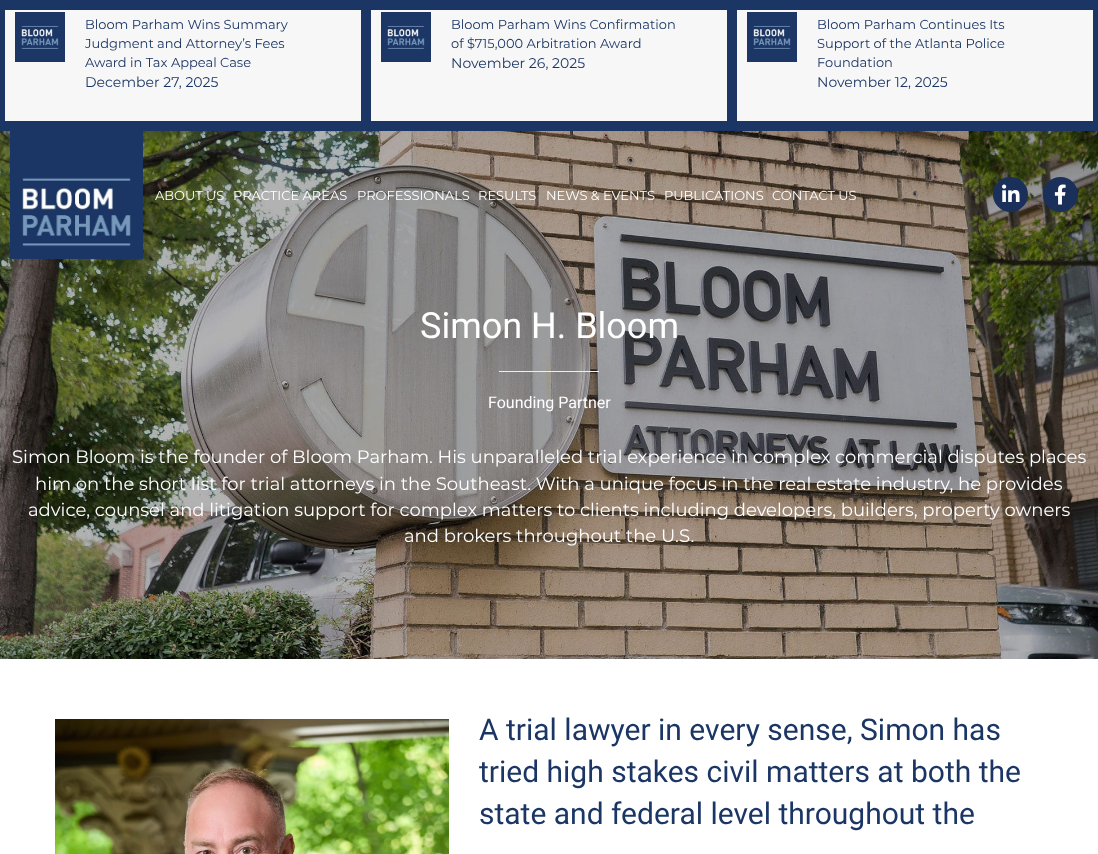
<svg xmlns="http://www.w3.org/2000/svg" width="1098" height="854">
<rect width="100%" height="100%" fill="#fff"/>
<rect width="1098" height="131" fill="#1b3665"/>
<rect x="5" y="10" width="356" height="111" fill="#f7f7f7"/>
<image x="15" y="12" width="50" height="50" href="media/1.png"/>
<text x="85" y="29" style="font-family:Montserrat;font-size:13px;fill:#1b3665">Bloom Parham Wins Summary</text>
<text x="85" y="48" style="font-family:Montserrat;font-size:13px;fill:#1b3665">Judgment and Attorney’s Fees</text>
<text x="85" y="67" style="font-family:Montserrat;font-size:13px;fill:#1b3665">Award in Tax Appeal Case</text>
<text x="85" y="87" style="font-family:Montserrat;font-size:14px;fill:#1b3665">December 27, 2025</text>
<rect x="371" y="10" width="356" height="111" fill="#f7f7f7"/>
<image x="381" y="12" width="50" height="50" href="media/1.png"/>
<text x="451" y="29" style="font-family:Montserrat;font-size:13px;fill:#1b3665">Bloom Parham Wins Confirmation</text>
<text x="451" y="48" style="font-family:Montserrat;font-size:13px;fill:#1b3665">of $715,000 Arbitration Award</text>
<text x="451" y="68" style="font-family:Montserrat;font-size:14px;fill:#1b3665">November 26, 2025</text>
<rect x="737" y="10" width="356" height="111" fill="#f7f7f7"/>
<image x="747" y="12" width="50" height="50" href="media/1.png"/>
<text x="817" y="29" style="font-family:Montserrat;font-size:13px;fill:#1b3665">Bloom Parham Continues Its</text>
<text x="817" y="48" style="font-family:Montserrat;font-size:13px;fill:#1b3665">Support of the Atlanta Police</text>
<text x="817" y="67" style="font-family:Montserrat;font-size:13px;fill:#1b3665">Foundation</text>
<text x="817" y="87" style="font-family:Montserrat;font-size:14px;fill:#1b3665">November 12, 2025</text>
<image x="0" y="131" width="1098" height="528" href="media/5.png"/>
<image x="10" y="131" width="133" height="128" href="media/2.png"/>
<text x="155" y="200" style="font-family:Montserrat;font-size:13px;fill:#fff">ABOUT US</text>
<text x="233" y="200" style="font-family:Montserrat;font-size:13px;fill:#fff">PRACTICE AREAS</text>
<text x="357" y="200" style="font-family:Montserrat;font-size:13px;fill:#fff">PROFESSIONALS</text>
<text x="478" y="200" style="font-family:Montserrat;font-size:13px;fill:#fff">RESULTS</text>
<text x="546" y="200" style="font-family:Montserrat;font-size:13px;fill:#fff">NEWS &amp; EVENTS</text>
<text x="664" y="200" style="font-family:Montserrat;font-size:13px;fill:#fff">PUBLICATIONS</text>
<text x="772" y="200" style="font-family:Montserrat;font-size:13px;fill:#fff">CONTACT US</text>
<circle cx="1010.5" cy="194.5" r="17.5" fill="#1a305a"/>
<image x="1002" y="184" width="18" height="18" href="media/3.png"/>
<circle cx="1060.5" cy="194.5" r="17.5" fill="#1a305a"/>
<image x="1054" y="184" width="12" height="21" href="media/4.png"/>
<text x="420" y="338" style="font-family:Roboto;font-size:36px;fill:#fff">Simon H. Bloom</text>
<rect x="499" y="371" width="100" height="1" fill="#eee"/>
<text x="488" y="408" style="font-family:Roboto;font-size:16px;fill:#fff">Founding Partner</text>
<text x="12" y="463" style="font-family:Montserrat;font-size:18px;fill:#fff">Simon Bloom is the founder of Bloom Parham. His unparalleled trial experience in complex commercial disputes places</text>
<text x="35" y="490" style="font-family:Montserrat;font-size:18px;fill:#fff">him on the short list for trial attorneys in the Southeast. With a unique focus in the real estate industry, he provides</text>
<text x="28" y="516" style="font-family:Montserrat;font-size:18px;fill:#fff">advice, counsel and litigation support for complex matters to clients including developers, builders, property owners</text>
<text x="404" y="542" style="font-family:Montserrat;font-size:18px;fill:#fff">and brokers throughout the U.S.</text>
<image x="55" y="719" width="394" height="135" href="media/6.png"/>
<text x="479" y="740" style="font-family:Roboto;font-size:30px;fill:#1b3665">A trial lawyer in every sense, Simon has</text>
<text x="479" y="782" style="font-family:Roboto;font-size:30px;fill:#1b3665">tried high stakes civil matters at both the</text>
<text x="479" y="824" style="font-family:Roboto;font-size:30px;fill:#1b3665">state and federal level throughout the</text>
</svg>
